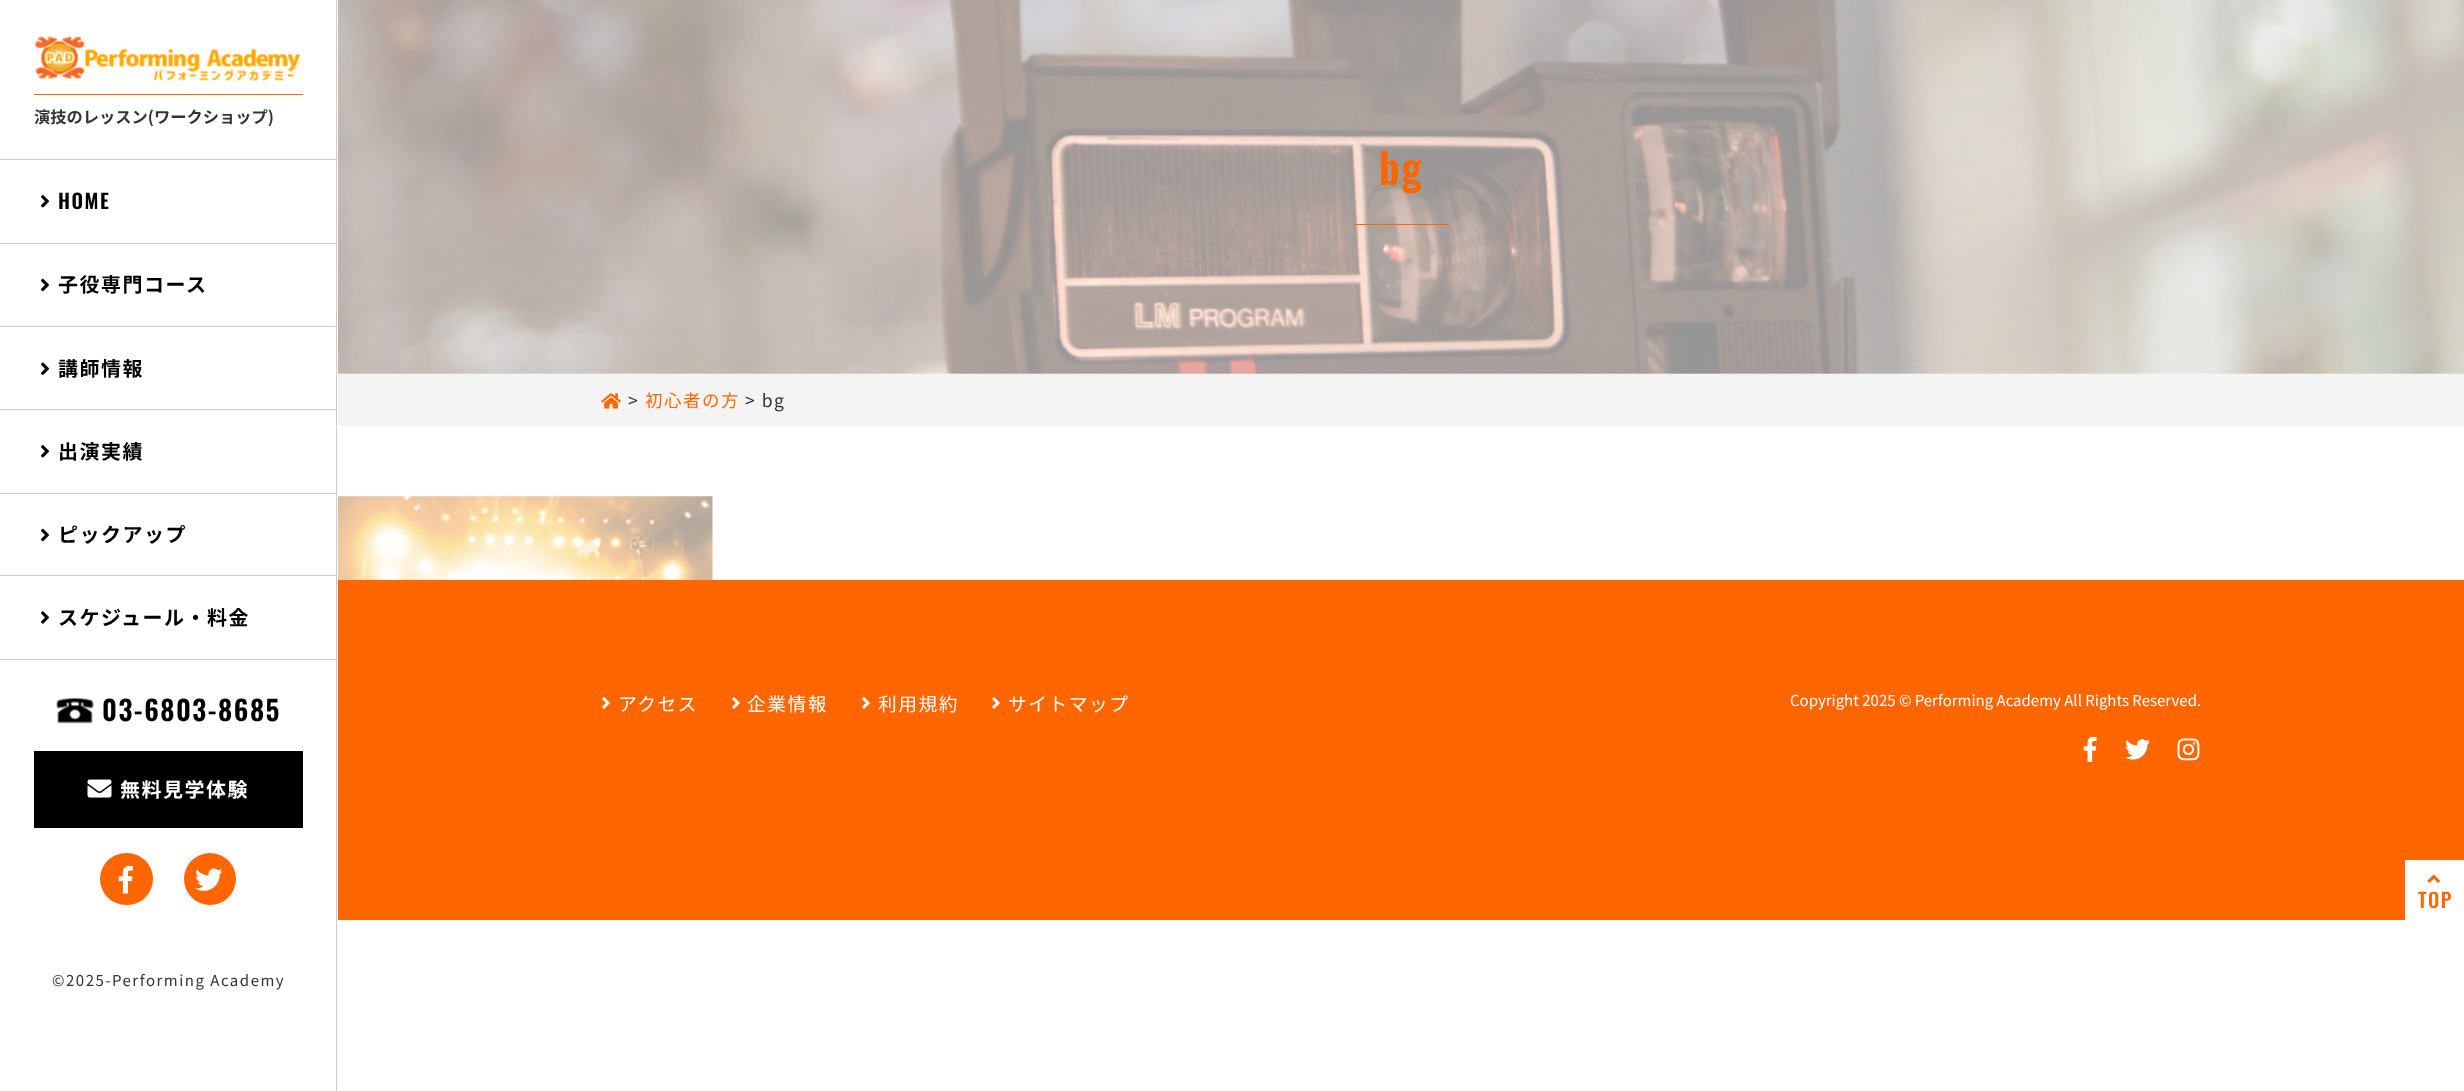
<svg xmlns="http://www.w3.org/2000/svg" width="2464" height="1091">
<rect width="100%" height="100%" fill="#fff"/>
<rect x="336" width="1" height="1091" fill="#ccc"/>
<rect x="34" y="94" width="269" height="1" fill="#f60"/>
<image x="34" y="36" width="267" height="45" href="media/1.png"/>
<text x="34" y="123" style="font-family:Noto Sans JP;font-size:16.25px;font-weight:bold;fill:#343434">演技のレッスン(ワークショップ)</text>
<rect y="159" width="336" height="1" fill="#ccc"/>
<rect y="243" width="336" height="1" fill="#ccc"/>
<image x="41" y="195" width="8" height="13" href="media/2.png"/>
<text x="58" y="209" style="font-family:Oswald;font-size:20px;font-weight:600;letter-spacing:1.5px;fill:#000">HOME</text>
<rect y="326" width="336" height="1" fill="#ccc"/>
<image x="41" y="278" width="8" height="14" href="media/3.png"/>
<text x="58" y="292" style="font-family:Noto Sans JP;font-size:20px;font-weight:bold;letter-spacing:1.5px;fill:#000">子役専門コース</text>
<rect y="409" width="336" height="1" fill="#ccc"/>
<image x="41" y="362" width="8" height="13" href="media/4.png"/>
<text x="58" y="376" style="font-family:Noto Sans JP;font-size:20px;font-weight:bold;letter-spacing:1.5px;fill:#000">講師情報</text>
<rect y="493" width="336" height="1" fill="#ccc"/>
<image x="41" y="445" width="8" height="13" href="media/2.png"/>
<text x="58" y="459" style="font-family:Noto Sans JP;font-size:20px;font-weight:bold;letter-spacing:1.5px;fill:#000">出演実績</text>
<rect y="575" width="336" height="1" fill="#ccc"/>
<image x="41" y="528" width="8" height="14" href="media/3.png"/>
<text x="58" y="542" style="font-family:Noto Sans JP;font-size:20px;font-weight:bold;letter-spacing:1.5px;fill:#000">ピックアップ</text>
<rect y="659" width="336" height="1" fill="#ccc"/>
<image x="41" y="611" width="8" height="13" href="media/5.png"/>
<text x="58" y="625" style="font-family:Noto Sans JP;font-size:20px;font-weight:bold;letter-spacing:1.5px;fill:#000">スケジュール・料金</text>
<image x="55" y="697" width="39" height="27" href="media/6.png"/>
<text x="102" y="721" style="font-family:Oswald;font-size:27.5px;font-weight:600;letter-spacing:1.5px;fill:#000">03-6803-8685</text>
<rect x="34" y="751" width="269" height="77" fill="#000"/>
<image x="87" y="779" width="25" height="19" href="media/7.png"/>
<text x="120" y="797" style="font-family:Noto Sans JP;font-size:20px;font-weight:bold;letter-spacing:1.5px;fill:#fff">無料見学体験</text>
<rect x="100" y="853" width="53" height="52" rx="26" fill="#f60"/>
<image x="118" y="865" width="15" height="29" href="media/8.png"/>
<circle cx="210" cy="879" r="26" fill="#f60"/>
<image x="195" y="868" width="28" height="23" href="media/9.png"/>
<text x="52" y="986" style="font-family:Noto Sans JP;font-size:15px;letter-spacing:1.5px;fill:#343434">©2025-Performing Academy</text>
<image x="338" y="0" width="2126" height="374" href="media/10.png"/>
<text x="1379" y="185" style="font-family:Oswald;font-size:42px;font-weight:600;letter-spacing:1.5px;fill:#f60">bg</text>
<rect x="1354" y="224" width="95" height="1" fill="#f60"/>
<rect x="338" y="374" width="2126" height="52" fill="#f4f4f5"/>
<image x="601" y="393" width="20" height="16" href="media/11.png"/>
<text x="628" y="407" style="font-family:Noto Sans JP;font-size:17.5px;letter-spacing:1.5px;fill:#343434">&gt;</text>
<text x="645" y="407" style="font-family:Noto Sans JP;font-size:17.5px;letter-spacing:1.5px;fill:#f60">初心者の方</text>
<text x="745" y="407" style="font-family:Noto Sans JP;font-size:17.5px;letter-spacing:1.5px;fill:#343434">&gt; bg</text>
<image x="338" y="496" width="375" height="84" href="media/12.png"/>
<rect x="338" y="580" width="2126" height="340" fill="#f60"/>
<image x="602" y="697" width="8" height="12" href="media/13.png"/>
<text x="618" y="711" style="font-family:Noto Sans JP;font-size:18.75px;letter-spacing:1.5px;fill:#fff">アクセス</text>
<image x="732" y="697" width="8" height="12" href="media/13.png"/>
<text x="747" y="711" style="font-family:Noto Sans JP;font-size:18.75px;letter-spacing:1.5px;fill:#fff">企業情報</text>
<image x="862" y="697" width="8" height="12" href="media/13.png"/>
<text x="878" y="711" style="font-family:Noto Sans JP;font-size:18.75px;letter-spacing:1.5px;fill:#fff">利用規約</text>
<image x="992" y="697" width="8" height="12" href="media/13.png"/>
<text x="1008" y="711" style="font-family:Noto Sans JP;font-size:18.75px;letter-spacing:1.5px;fill:#fff">サイトマップ</text>
<text x="1790" y="706" style="font-family:Noto Sans JP;font-size:15px;fill:#fff">Copyright 2025 © Performing Academy All Rights Reserved.</text>
<image x="2083" y="736" width="14" height="26" href="media/14.png"/>
<image x="2125" y="739" width="25" height="21" href="media/15.png"/>
<image x="2177" y="738" width="23" height="23" href="media/16.png"/>
<rect x="2405" y="860" width="59" height="60" fill="#fff"/>
<image x="2427" y="874" width="13" height="9" href="media/17.png"/>
<text x="2418" y="908" style="font-family:Oswald;font-size:20px;font-weight:500;letter-spacing:1.5px;fill:#f60">TOP</text>
</svg>
